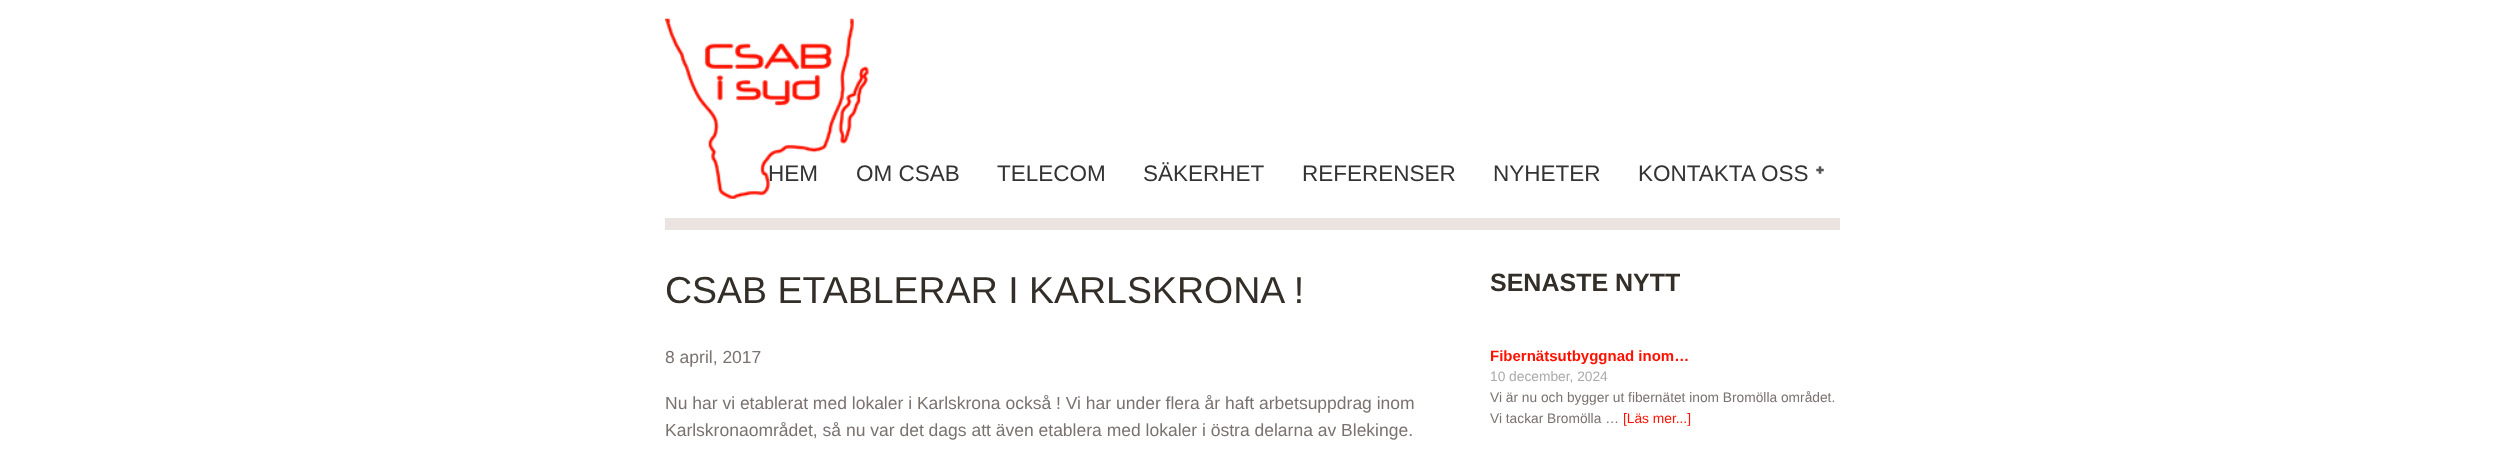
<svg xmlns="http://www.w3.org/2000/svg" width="2504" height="458">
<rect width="100%" height="100%" fill="#fff"/>
<image x="665" y="18" width="204" height="181" href="media/1.png"/>
<text x="768" y="181" style="font-family:Liberation Sans;font-size:22.5px;fill:#333">HEM</text>
<text x="856" y="181" style="font-family:Liberation Sans;font-size:22.5px;fill:#333">OM CSAB</text>
<text x="997" y="181" style="font-family:Liberation Sans;font-size:22.5px;fill:#333">TELECOM</text>
<text x="1143" y="181" style="font-family:Liberation Sans;font-size:22.5px;fill:#333">SÄKERHET</text>
<text x="1302" y="181" style="font-family:Liberation Sans;font-size:22.5px;fill:#333">REFERENSER</text>
<text x="1493" y="181" style="font-family:Liberation Sans;font-size:22.5px;fill:#333">NYHETER</text>
<text x="1638" y="181" style="font-family:Liberation Sans;font-size:22.5px;fill:#333">KONTAKTA OSS</text>
<image x="1816" y="166" width="8" height="8" href="media/2.png"/>
<rect x="665" y="218" width="1175" height="12" fill="#eae3e0"/>
<text x="665" y="303" style="font-family:Liberation Sans;font-size:37.5px;fill:#332e28">CSAB ETABLERAR I KARLSKRONA !</text>
<text x="665" y="363" style="font-family:Liberation Sans;font-size:17.5px;fill:#7a726f">8 april, 2017</text>
<text x="665" y="409" style="font-family:Liberation Sans;font-size:17.5px;fill:#7a726f">Nu har vi etablerat med lokaler i Karlskrona också ! Vi har under flera år haft arbetsuppdrag inom</text>
<text x="665" y="436" style="font-family:Liberation Sans;font-size:17.5px;fill:#7a726f">Karlskronaområdet, så nu var det dags att även etablera med lokaler i östra delarna av Blekinge.</text>
<text x="1490" y="291" style="font-family:Liberation Sans;font-size:25px;font-weight:bold;fill:#332e28">SENASTE NYTT</text>
<text x="1490" y="361" style="font-family:Liberation Sans;font-size:15px;font-weight:bold;fill:#f10">Fibernätsutbyggnad inom…</text>
<text x="1490" y="381" style="font-family:Liberation Sans;font-size:13.75px;fill:#aaa">10 december, 2024</text>
<text x="1490" y="402" style="font-family:Liberation Sans;font-size:13.75px;fill:#7a726f">Vi är nu och bygger ut fibernätet inom Bromölla området.</text>
<text x="1490" y="423" style="font-family:Liberation Sans;font-size:13.75px;fill:#7a726f">Vi tackar Bromölla …</text>
<text x="1623" y="423" style="font-family:Liberation Sans;font-size:13.75px;fill:#f10">[Läs mer...]</text>
</svg>
